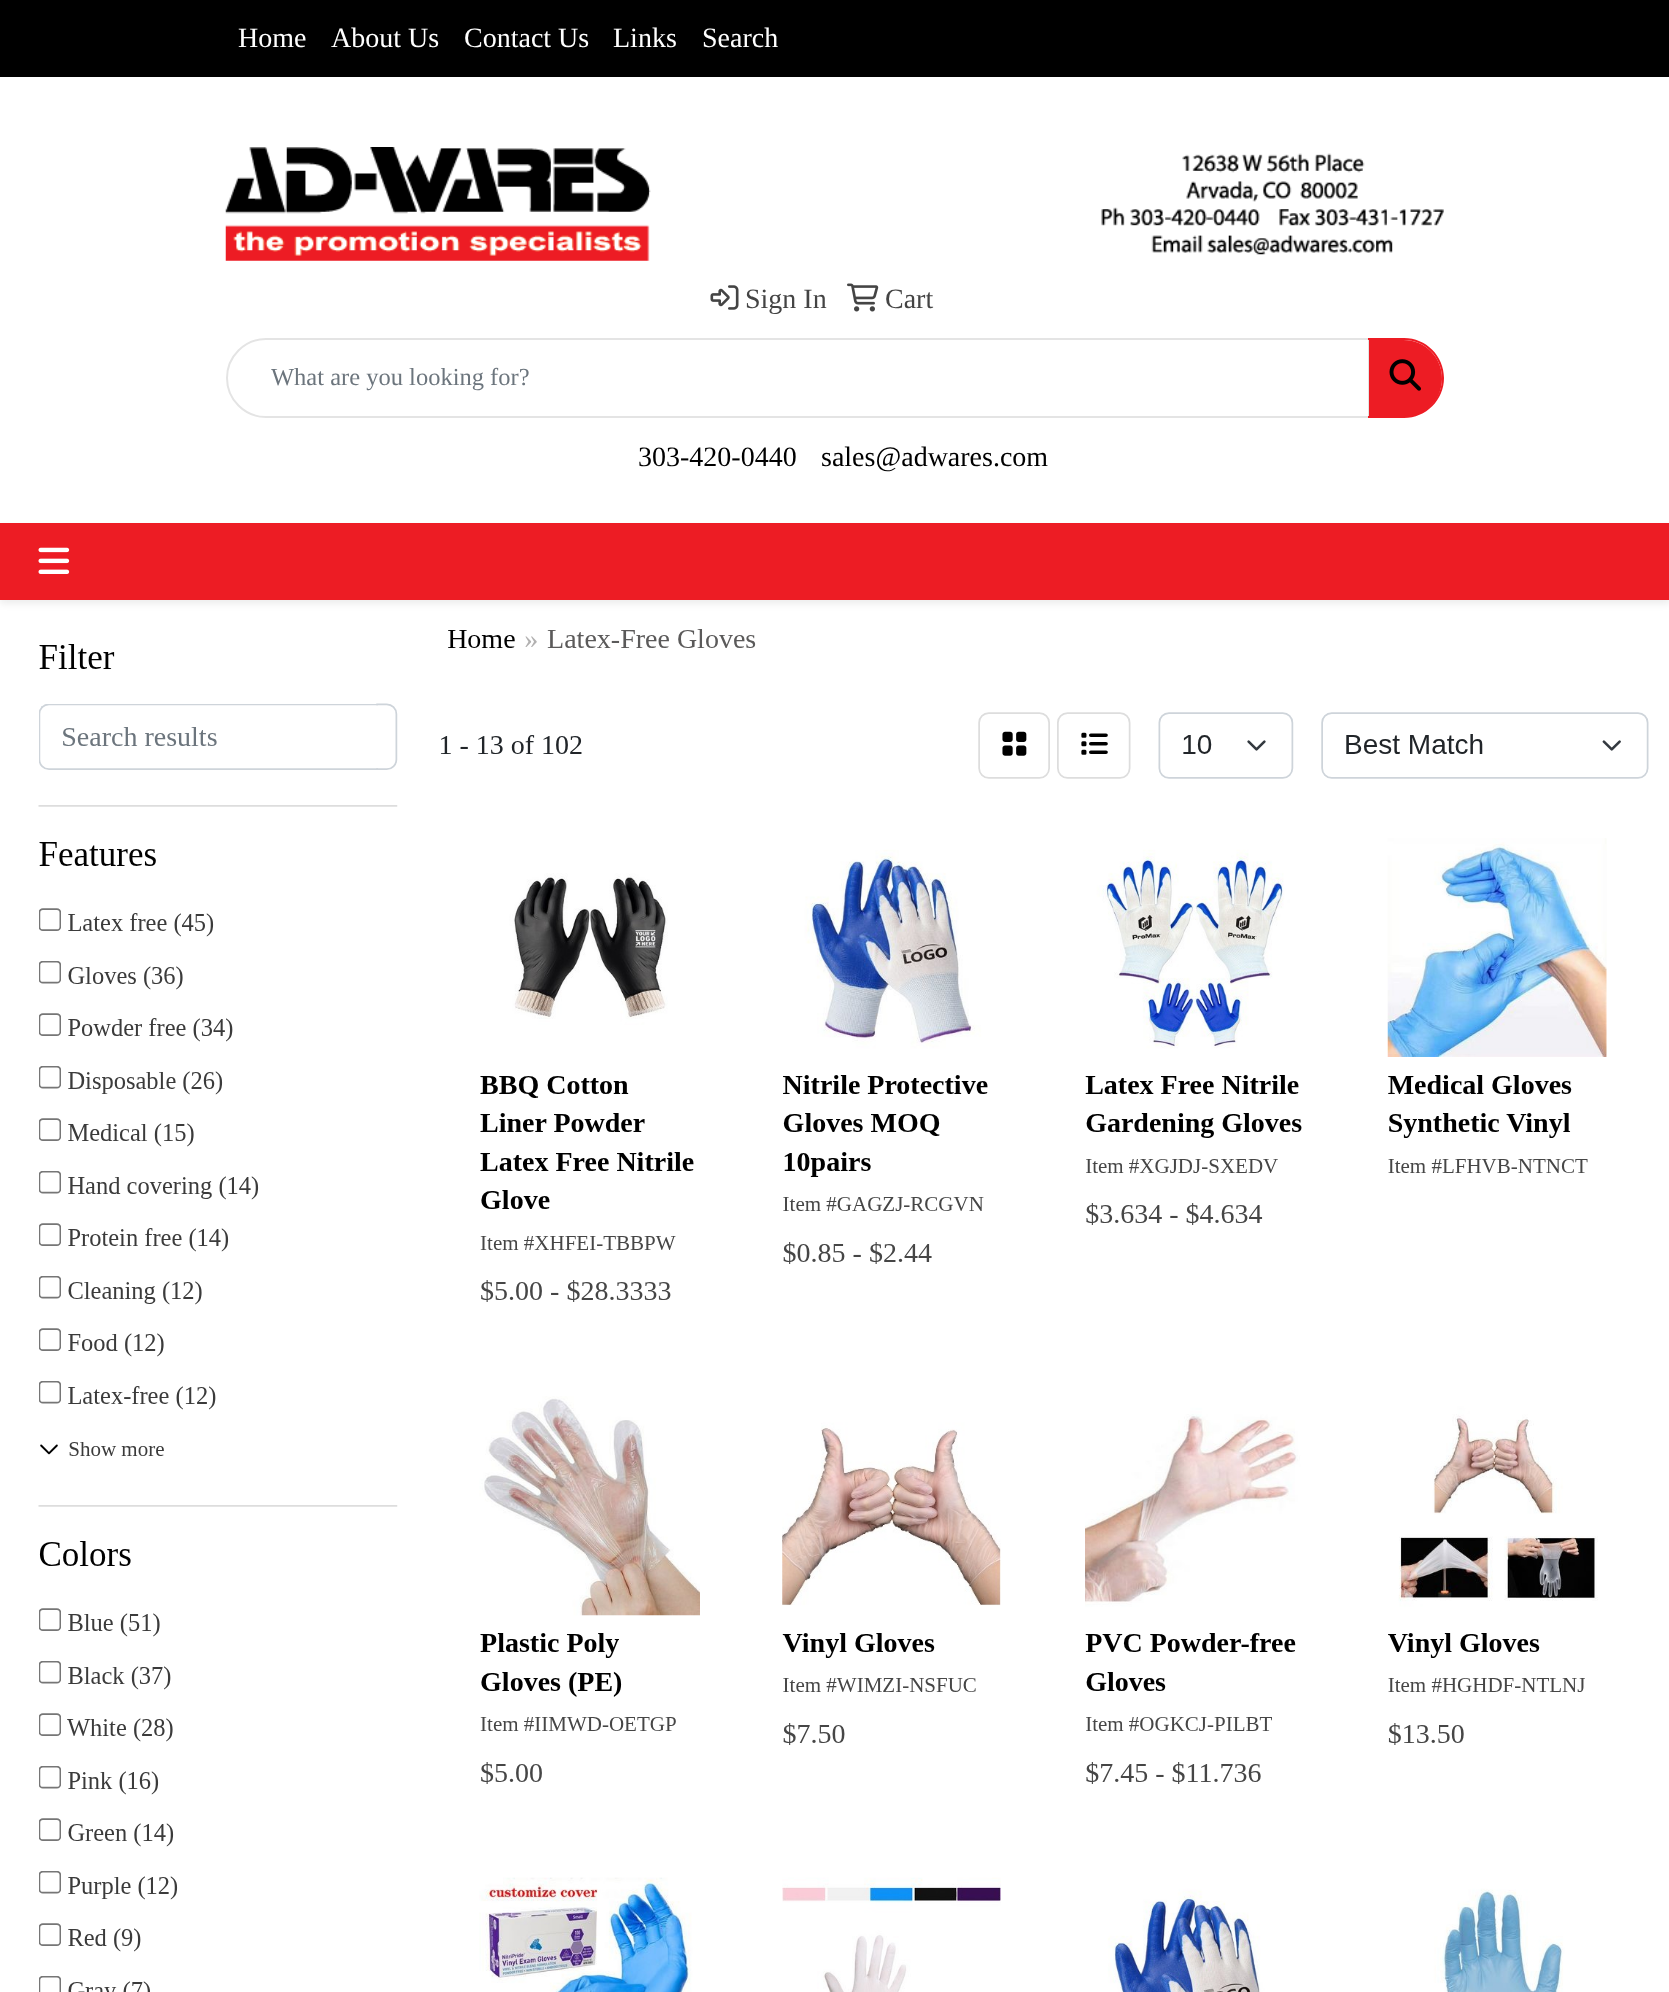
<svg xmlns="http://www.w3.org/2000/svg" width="1669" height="1992">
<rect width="100%" height="100%" fill="#fff"/>
<rect width="1669" height="77" fill="#000"/>
<text x="238" y="47" style="font-family:Liberation Serif;font-size:28px;fill:#fff">Home</text>
<text x="331" y="47" style="font-family:Liberation Serif;font-size:28px;fill:#fff">About Us</text>
<text x="464" y="47" style="font-family:Liberation Serif;font-size:28px;fill:#fff">Contact Us</text>
<text x="613" y="47" style="font-family:Liberation Serif;font-size:28px;fill:#fff">Links</text>
<text x="702" y="47" style="font-family:Liberation Serif;font-size:28px;fill:#fff">Search</text>
<image x="225" y="147" width="1219" height="114" href="media/1.png"/>
<image x="710" y="285" width="29" height="25" href="media/2.png"/>
<text x="745" y="308" style="font-family:Liberation Serif;font-size:28px;fill:#444">Sign In</text>
<image x="847" y="283" width="32" height="29" href="media/3.png"/>
<text x="885" y="308" style="font-family:Liberation Serif;font-size:28px;fill:#444">Cart</text>
<path d="M266 339h1103v78h-1103c-21.5 0-39-17.5-39-39c0-21.5 17.5-39 39-39z" fill="none" stroke="#e4e4e4" stroke-width="2"/>
<text x="271" y="385" style="font-family:Liberation Serif;font-size:24.5px;fill:#6c757d">What are you looking for?</text>
<path d="M1369 340h34.5c21.5 0 38.5 17 38.5 38.5c0 21.5-17 38.5-38.5 38.5h-34.5z" fill="#ed1c24"/>
<path d="M1368 338h36c22 0 40 18 40 40c0 22-18 40-40 40h-36zm0 2h36c21 0 38 17 38 38c0 21-17 38-38 38h-36z" fill="#ed1c24" fill-rule="evenodd"/>
<image x="1389" y="359" width="32" height="32" href="media/4.png"/>
<text x="638" y="466" style="font-family:Liberation Serif;font-size:28px;fill:#000">303-420-0440</text>
<text x="821" y="466" style="font-family:Liberation Serif;font-size:28px;fill:#000">sales@adwares.com</text>
<rect y="527" width="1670" height="77" fill="#00000012" filter="blur(3.5px)"/>
<rect y="523" width="1669" height="77" fill="#ed1c24"/>
<image x="38" y="547" width="32" height="27" href="media/5.png"/>
<image x="38" y="629" width="1611" height="1363" href="media/6.png"/>
</svg>
